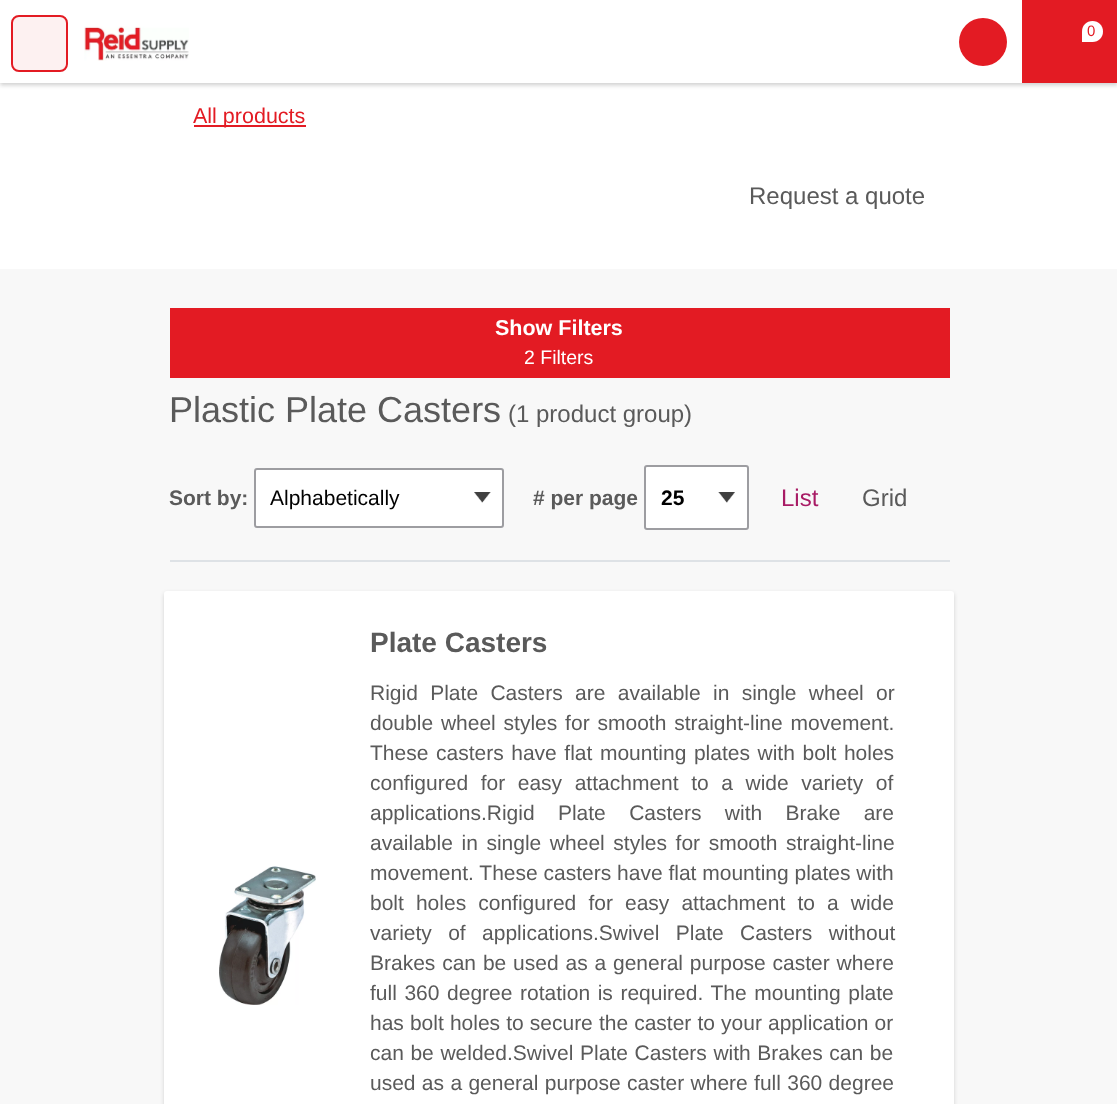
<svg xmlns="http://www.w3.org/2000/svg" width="1117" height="1104">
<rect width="100%" height="100%" fill="#fff"/>
<rect y="2" width="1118" height="82" fill="#0000011a" filter="blur(2px)"/>
<rect y="3" width="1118" height="83" fill="#0000011a" filter="blur(2px)"/>
<rect width="1022" height="83" fill="#fff"/>
<rect x="12" y="16" width="55" height="55" rx="7" fill="#fdf1f1" stroke="#e31b23" stroke-width="2"/>
<image x="84" y="26" width="105" height="35" href="media/1.png"/>
<circle cx="983" cy="42" r="24" fill="#e31b23"/>
<rect x="1022" width="95" height="83" fill="#e31b23"/>
<path d="M1092.5 21c6 0 10.5 4.5 10.5 10.5c0 6-4.5 10.5-10.5 10.5h-10.5v-10.5c0-6 4.5-10.5 10.5-10.5z" fill="#fff"/>
<text x="1087" y="36" style="font-family:Liberation Sans;font-size:15px;fill:#e31b23">0</text>
<rect x="194" y="125" width="112" height="2" fill="#e31b23"/>
<text x="193" y="123" style="font-family:Liberation Sans;font-size:21.5px;fill:#e31b23">All products</text>
<text x="749" y="204" style="font-family:Liberation Sans;font-size:24px;fill:#5a5a5a">Request a quote</text>
<rect y="269" width="1117" height="835" fill="#f8f8f8"/>
<rect x="170" y="308" width="780" height="70" fill="#e31b23"/>
<text x="495" y="335" style="font-family:Liberation Sans;font-size:21.5px;font-weight:bold;fill:#fff">Show Filters</text>
<text x="524" y="364" style="font-family:Liberation Sans;font-size:19.5px;fill:#fff">2 Filters</text>
<text x="169" y="422" style="font-family:Liberation Sans;font-size:36px;fill:#5a5a5a">Plastic Plate Casters</text>
<text x="508" y="422" style="font-family:Liberation Sans;font-size:24px;fill:#5a5a5a">(1 product group)</text>
<text x="169" y="505" style="font-family:Liberation Sans;font-size:21px;font-weight:bold;fill:#5a5a5a">Sort by:</text>
<rect x="254" y="468" width="250" height="60" rx="3" fill="#fff"/>
<image x="474" y="492" width="17" height="11" href="media/2.png"/>
<rect x="255" y="469" width="248" height="58" rx="2" fill="none" stroke="#9d9da1" stroke-width="2"/>
<text x="270" y="505" style="font-family:Liberation Sans;font-size:21px;fill:#000">Alphabetically</text>
<text x="533" y="505" style="font-family:Liberation Sans;font-size:21px;font-weight:bold;fill:#5a5a5a"># per page</text>
<rect x="644" y="465" width="105" height="65" rx="3" fill="#fff"/>
<image x="718" y="492" width="17" height="11" href="media/3.png"/>
<rect x="645" y="466" width="103" height="63" rx="2" fill="none" stroke="#9d9da1" stroke-width="2"/>
<text x="661" y="505" style="font-family:Liberation Sans;font-size:21px;font-weight:bold;fill:#000">25</text>
<text x="781" y="506" style="font-family:Liberation Sans;font-size:24px;fill:#a81b65">List</text>
<text x="862" y="506" style="font-family:Liberation Sans;font-size:24px;fill:#5a5a5a">Grid</text>
<rect x="170" y="560" width="780" height="2" fill="#dee2e6"/>
<rect x="164" y="593" width="790" height="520" rx="3" fill="#00000126" filter="blur(2px)"/>
<rect x="164" y="591" width="790" height="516" rx="3" fill="#fff"/>
<image x="219" y="866" width="97" height="139" href="media/4.png"/>
<text x="370" y="652" style="font-family:Liberation Sans;font-size:28px;font-weight:bold;fill:#5a5a5a">Plate Casters</text>
<text x="370" y="700" word-spacing="6.5" style="font-family:Liberation Sans;font-size:21px;fill:#5a5a5a">Rigid Plate Casters are available in single wheel or</text>
<text x="370" y="730" word-spacing="2" style="font-family:Liberation Sans;font-size:21px;fill:#5a5a5a">double wheel styles for smooth straight-line movement.</text>
<text x="370" y="760" word-spacing="1.75" style="font-family:Liberation Sans;font-size:21px;fill:#5a5a5a">These casters have flat mounting plates with bolt holes</text>
<text x="370" y="790" word-spacing="6.75" style="font-family:Liberation Sans;font-size:21px;fill:#5a5a5a">configured for easy attachment to a wide variety of</text>
<text x="370" y="820" word-spacing="17.5" style="font-family:Liberation Sans;font-size:21px;fill:#5a5a5a">applications.Rigid Plate Casters with Brake are</text>
<text x="370" y="850" word-spacing="2.75" style="font-family:Liberation Sans;font-size:21px;fill:#5a5a5a">available in single wheel styles for smooth straight-line</text>
<text x="370" y="880" style="font-family:Liberation Sans;font-size:21px;fill:#5a5a5a">movement. These casters have flat mounting plates with</text>
<text x="370" y="910" word-spacing="6.25" style="font-family:Liberation Sans;font-size:21px;fill:#5a5a5a">bolt holes configured for easy attachment to a wide</text>
<text x="370" y="940" word-spacing="10.5" style="font-family:Liberation Sans;font-size:21px;fill:#5a5a5a">variety of applications.Swivel Plate Casters without</text>
<text x="370" y="970" word-spacing="1" style="font-family:Liberation Sans;font-size:21px;fill:#5a5a5a">Brakes can be used as a general purpose caster where</text>
<text x="370" y="1000" word-spacing="1.75" style="font-family:Liberation Sans;font-size:21px;fill:#5a5a5a">full 360 degree rotation is required. The mounting plate</text>
<text x="370" y="1030" word-spacing="0.25" style="font-family:Liberation Sans;font-size:21px;fill:#5a5a5a">has bolt holes to secure the caster to your application or</text>
<text x="370" y="1060" word-spacing="0.75" style="font-family:Liberation Sans;font-size:21px;fill:#5a5a5a">can be welded.Swivel Plate Casters with Brakes can be</text>
<text x="370" y="1090" word-spacing="0.5" style="font-family:Liberation Sans;font-size:21px;fill:#5a5a5a">used as a general purpose caster where full 360 degree</text>
</svg>
